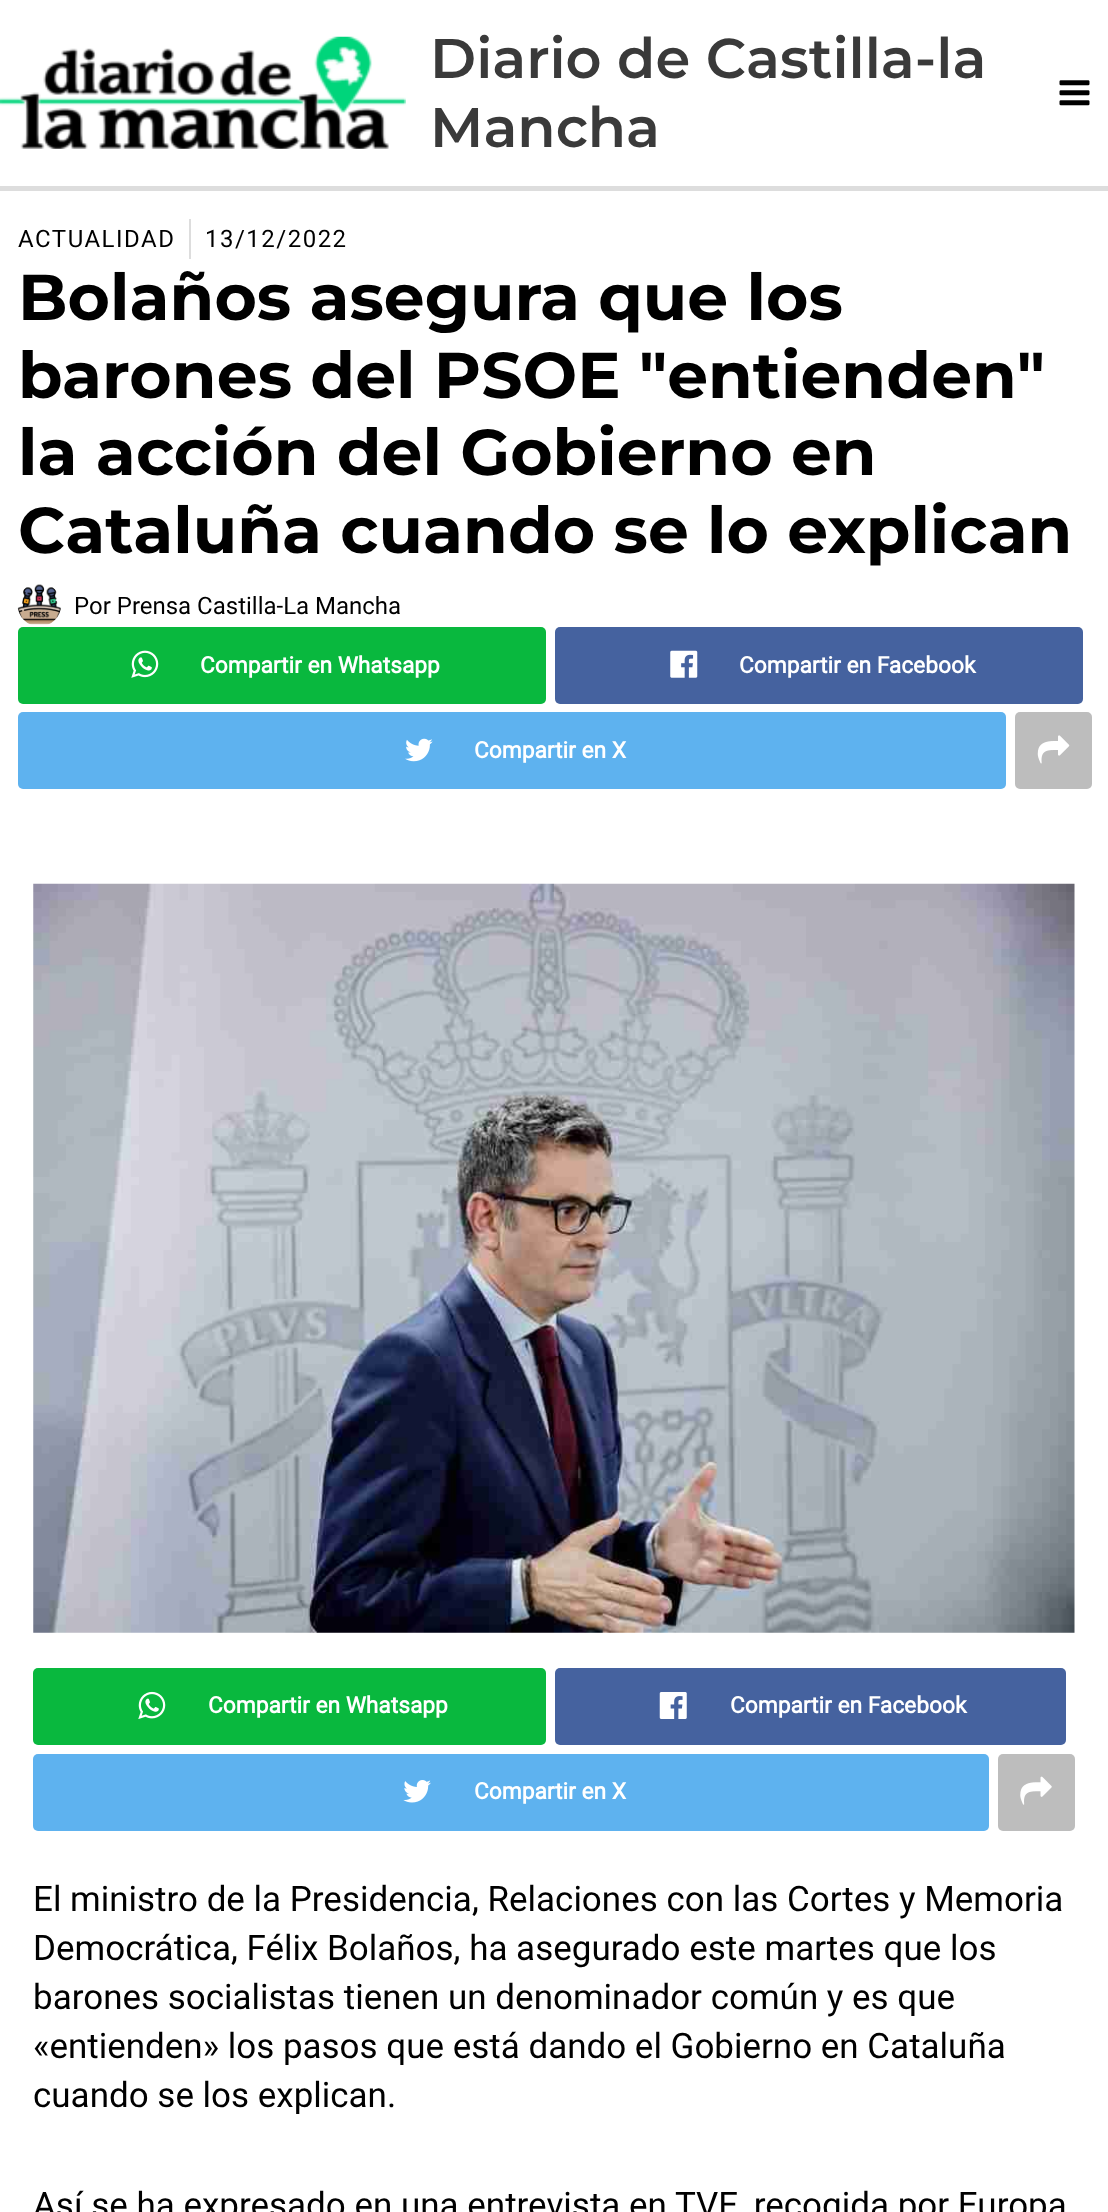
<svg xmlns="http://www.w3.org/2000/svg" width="1108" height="2212">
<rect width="100%" height="100%" fill="#fff"/>
<rect y="186" width="1108" height="5" fill="#ddd"/>
<image x="0" y="36" width="406" height="113" href="media/1.png"/>
<text x="430" y="78" style="font-family:Montserrat;font-size:55.9px;font-weight:600;fill:#3a3a3a">Diario de Castilla-la</text>
<text x="430" y="147" style="font-family:Montserrat;font-size:55.9px;font-weight:600;fill:#3a3a3a">Mancha</text>
<image x="1059" y="80" width="31" height="26" href="media/2.png"/>
<text x="18" y="247" style="font-family:Roboto;font-size:24px;letter-spacing:1.5px;fill:#000">ACTUALIDAD</text>
<rect x="189" y="219" width="2" height="40" fill="#ddd"/>
<text x="205" y="247" style="font-family:Roboto;font-size:24px;letter-spacing:1.5px;fill:#000">13/12/2022</text>
<text x="18" y="320" style="font-family:Montserrat;font-size:64.75px;font-weight:bold;fill:#000">Bolaños asegura que los</text>
<text x="18" y="398" style="font-family:Montserrat;font-size:64.75px;font-weight:bold;fill:#000">barones del PSOE "entienden"</text>
<text x="18" y="475" style="font-family:Montserrat;font-size:64.75px;font-weight:bold;fill:#000">la acción del Gobierno en</text>
<text x="18" y="553" style="font-family:Montserrat;font-size:64.75px;font-weight:bold;fill:#000">Cataluña cuando se lo explican</text>
<image x="17" y="584" width="44" height="41" href="media/3.png"/>
<text x="74" y="614" style="font-family:Roboto;font-size:24px;fill:#000">Por Prensa Castilla-La Mancha</text>
<rect x="18" y="627" width="528" height="77" rx="5" fill="#09b83e"/>
<image x="131" y="650" width="28" height="28" href="media/4.png"/>
<text x="200" y="673" style="font-family:Roboto;font-size:22.75px;font-weight:bold;fill:#fff">Compartir en Whatsapp</text>
<rect x="555" y="627" width="528" height="77" rx="5" fill="#45629f"/>
<image x="670" y="650" width="28" height="28" href="media/5.png"/>
<text x="739" y="673" style="font-family:Roboto;font-size:22.75px;font-weight:bold;fill:#fff">Compartir en Facebook</text>
<rect x="18" y="712" width="988" height="77" rx="5" fill="#5eb2ef"/>
<image x="405" y="738" width="28" height="24" href="media/6.png"/>
<text x="474" y="758" style="font-family:Roboto;font-size:22.75px;font-weight:bold;fill:#fff">Compartir en X</text>
<rect x="1015" y="712" width="77" height="77" rx="5" fill="#bdbdbd"/>
<image x="1037" y="735" width="33" height="29" href="media/7.png"/>
<image x="33" y="883" width="1042" height="750" href="media/8.png"/>
<rect x="33" y="1668" width="513" height="77" rx="5" fill="#09b83e"/>
<image x="138" y="1691" width="28" height="28" href="media/9.png"/>
<text x="208" y="1713" style="font-family:Roboto;font-size:22.75px;font-weight:bold;fill:#fff">Compartir en Whatsapp</text>
<rect x="555" y="1668" width="511" height="77" rx="5" fill="#45629f"/>
<image x="659" y="1692" width="28" height="27" href="media/10.png"/>
<text x="730" y="1713" style="font-family:Roboto;font-size:22.75px;font-weight:bold;fill:#fff">Compartir en Facebook</text>
<rect x="33" y="1754" width="956" height="77" rx="5" fill="#5eb2ef"/>
<image x="403" y="1780" width="28" height="23" href="media/11.png"/>
<text x="474" y="1799" style="font-family:Roboto;font-size:22.75px;font-weight:bold;fill:#fff">Compartir en X</text>
<rect x="998" y="1754" width="77" height="77" rx="5" fill="#bdbdbd"/>
<image x="1020" y="1776" width="32" height="29" href="media/12.png"/>
<text x="33" y="1911" style="font-family:Roboto;font-size:35px;fill:#000">El ministro de la Presidencia, Relaciones con las Cortes y Memoria</text>
<text x="33" y="1960" style="font-family:Roboto;font-size:35px;fill:#000">Democrática, Félix Bolaños, ha asegurado este martes que los</text>
<text x="33" y="2009" style="font-family:Roboto;font-size:35px;fill:#000">barones socialistas tienen un denominador común y es que</text>
<text x="33" y="2058" style="font-family:Roboto;font-size:35px;fill:#000">«entienden» los pasos que está dando el Gobierno en Cataluña</text>
<text x="33" y="2107" style="font-family:Roboto;font-size:35px;fill:#000">cuando se los explican.</text>
<text x="33" y="2217" style="font-family:Roboto;font-size:35px;fill:#000">Así se ha expresado en una entrevista en TVE, recogida por Europa</text>
</svg>
